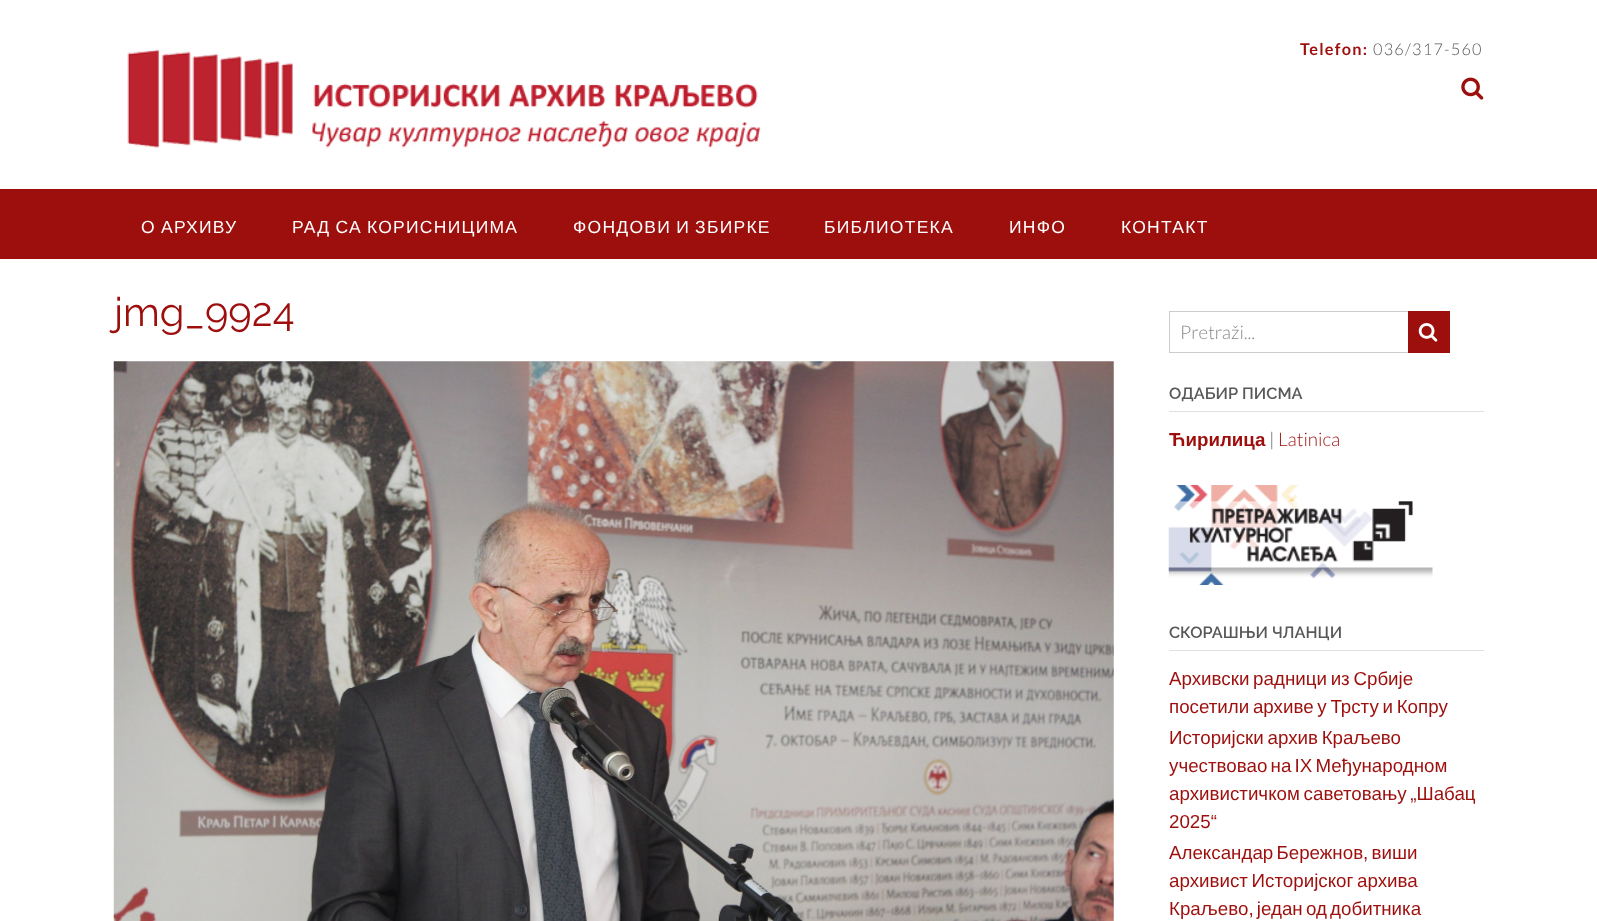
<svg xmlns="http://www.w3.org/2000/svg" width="1597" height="921">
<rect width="100%" height="100%" fill="#fff"/>
<image x="127" y="49" width="634" height="99" href="media/1.png"/>
<text x="1300" y="55" style="font-family:Lato;font-size:16.25px;font-weight:bold;letter-spacing:1.25px;fill:#9d0f0d">Telefon:</text>
<text x="1373" y="55" style="font-family:Lato;font-size:16.25px;font-weight:300;letter-spacing:1.25px;fill:#58585a">036/317-560</text>
<image x="1461" y="77" width="23" height="23" href="media/2.png"/>
<rect y="189" width="1597" height="70" fill="#9d0f0d"/>
<text x="141" y="233" word-spacing="-1" style="font-family:Liberation Sans;font-size:17.5px;letter-spacing:1.25px;fill:#fff">О АРХИВУ</text>
<text x="292" y="233" word-spacing="-1" style="font-family:Liberation Sans;font-size:17.5px;letter-spacing:1.25px;fill:#fff">РАД СА КОРИСНИЦИМА</text>
<text x="573" y="233" word-spacing="-1" style="font-family:Liberation Sans;font-size:17.5px;letter-spacing:1.25px;fill:#fff">ФОНДОВИ И ЗБИРКЕ</text>
<text x="824" y="233" style="font-family:Liberation Sans;font-size:17.5px;letter-spacing:1.25px;fill:#fff">БИБЛИОТЕКА</text>
<text x="1009" y="233" style="font-family:Liberation Sans;font-size:17.5px;letter-spacing:1.25px;fill:#fff">ИНФО</text>
<text x="1121" y="233" style="font-family:Liberation Sans;font-size:17.5px;letter-spacing:1.25px;fill:#fff">КОНТАКТ</text>
<text x="114" y="326" style="font-family:Raleway;font-size:40px;fill:#9d0f0d">jmg_9924</text>
<image x="113" y="361" width="1001" height="560" href="media/3.png"/>
<rect x="1169.5" y="311.5" width="241" height="41" fill="none" stroke="#ccc"/>
<text x="1180" y="339" style="font-family:Lato;font-size:18.75px;font-weight:300;fill:#8a8a8c">Pretraži...</text>
<rect x="1408" y="311" width="42" height="42" fill="#9d0f0d"/>
<image x="1418" y="323" width="20" height="19" href="media/4.png"/>
<rect x="1169" y="411" width="315" height="1" fill="#e0e0e0"/>
<text x="1169" y="399" style="font-family:Raleway;font-size:16.25px;font-weight:600;fill:#58585a">ОДАБИР ПИСМА</text>
<text x="1169" y="446" style="font-family:Liberation Sans;font-size:18.75px;font-weight:bold;fill:#9d0f0d">Ћирилица</text>
<text x="1269" y="446" style="font-family:Lato;font-size:18.75px;font-weight:300;fill:#58585a">|</text>
<text x="1278" y="446" style="font-family:Lato;font-size:18.75px;font-weight:300;fill:#9d0f0d">Latinica</text>
<image x="1168" y="485" width="265" height="100" href="media/5.png"/>
<rect x="1169" y="650" width="315" height="1" fill="#e0e0e0"/>
<text x="1169" y="638" style="font-family:Raleway;font-size:16.25px;font-weight:600;fill:#58585a">СКОРАШЊИ ЧЛАНЦИ</text>
<text x="1169" y="685" word-spacing="-1.5" style="font-family:Liberation Sans;font-size:18.75px;fill:#9d0f0d">Архивски радници из Србије</text>
<text x="1169" y="713" word-spacing="-1.5" style="font-family:Liberation Sans;font-size:18.75px;fill:#9d0f0d">посетили архиве у Трсту и Копру</text>
<text x="1169" y="744" word-spacing="-1.5" style="font-family:Liberation Sans;font-size:18.75px;fill:#9d0f0d">Историјски архив Краљево</text>
<text x="1169" y="772" word-spacing="-2" style="font-family:Liberation Sans;font-size:18.75px;fill:#9d0f0d">учествовао на IX Међународном</text>
<text x="1169" y="800" word-spacing="-1.5" style="font-family:Liberation Sans;font-size:18.75px;fill:#9d0f0d">архивистичком саветовању „Шабац</text>
<text x="1169" y="828" style="font-family:Liberation Sans;font-size:18.75px;fill:#9d0f0d">2025“</text>
<text x="1169" y="859" word-spacing="-2" style="font-family:Liberation Sans;font-size:18.75px;fill:#9d0f0d">Александар Бережнов, виши</text>
<text x="1169" y="887" word-spacing="-1.5" style="font-family:Liberation Sans;font-size:18.75px;fill:#9d0f0d">архивист Историјског архива</text>
<text x="1169" y="915" word-spacing="-2" style="font-family:Liberation Sans;font-size:18.75px;fill:#9d0f0d">Краљево, један од добитника</text>
</svg>
